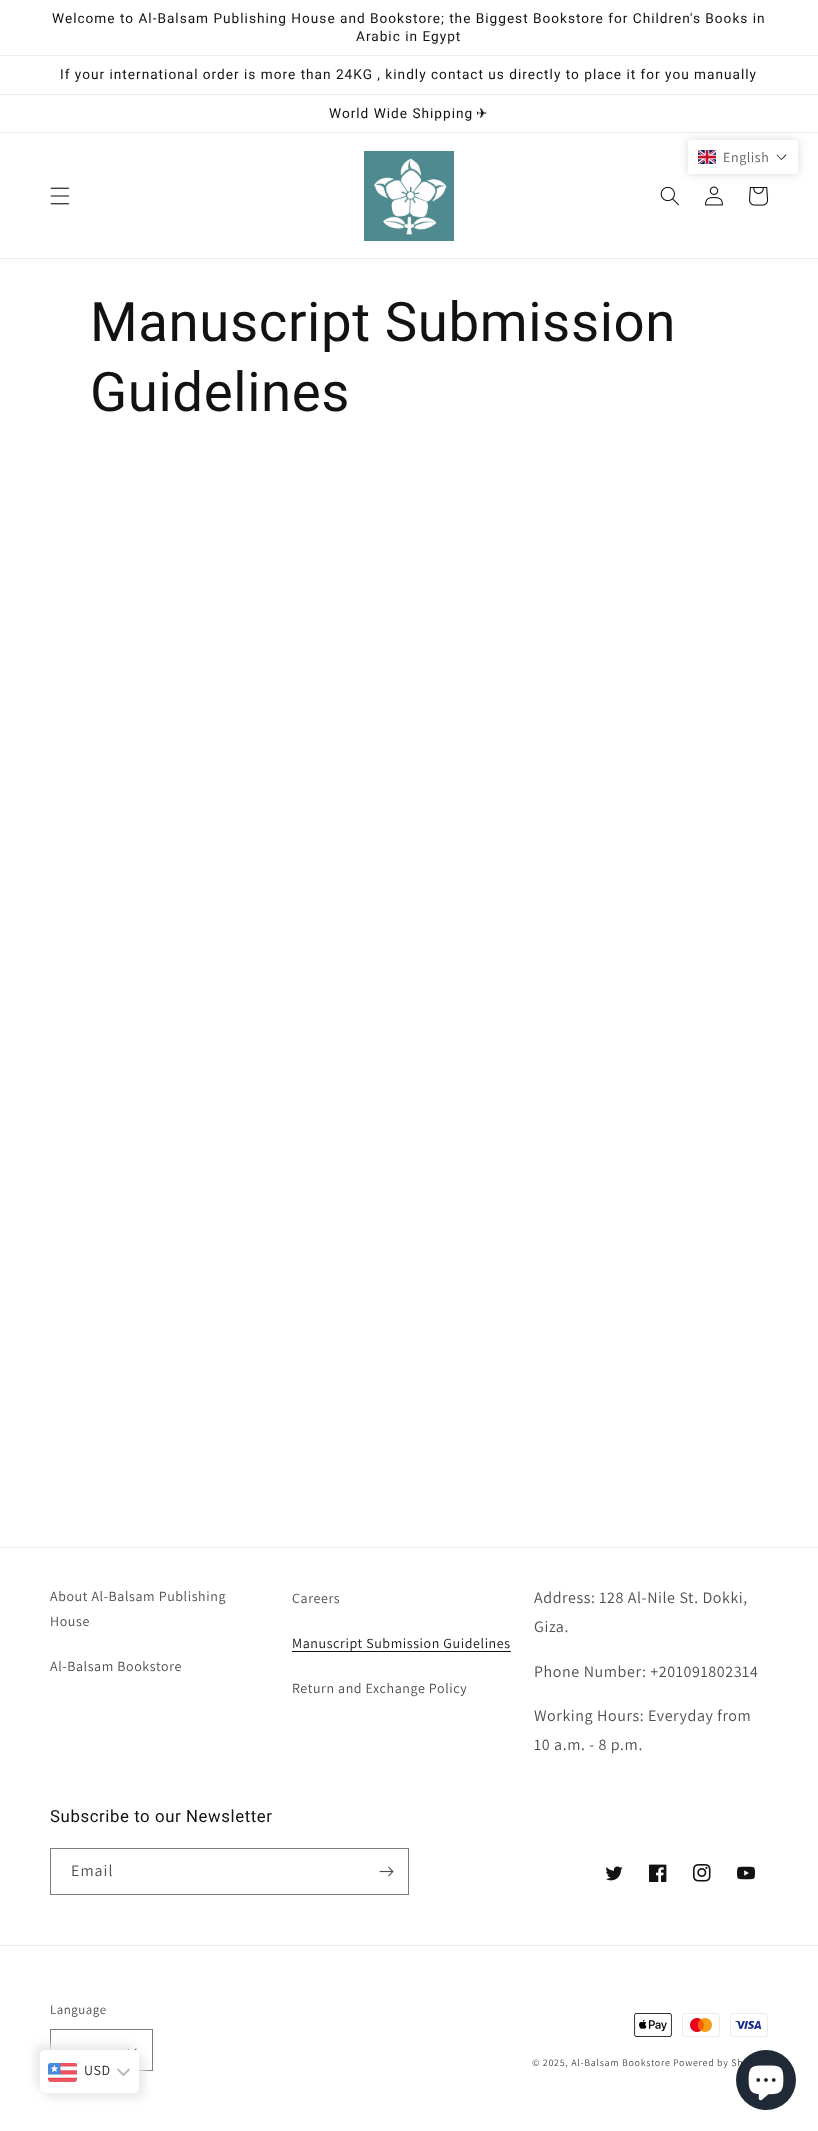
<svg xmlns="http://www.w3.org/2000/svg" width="818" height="2131">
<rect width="100%" height="100%" fill="#fff"/>
<rect y="55" width="818" height="1" fill="#ececec"/>
<text x="52" y="23" style="font-family:Roboto;font-size:13.65px;letter-spacing:1px;fill:#121212">Welcome to Al-Balsam Publishing House and Bookstore; the Biggest Bookstore for Children's Books in</text>
<text x="356" y="41" style="font-family:Roboto;font-size:13.65px;letter-spacing:1px;fill:#121212">Arabic in Egypt</text>
<rect y="94" width="818" height="1" fill="#ececec"/>
<text x="60" y="79" style="font-family:Roboto;font-size:13.65px;letter-spacing:1px;fill:#121212">If your international order is more than 24KG , kindly contact us directly to place it for you manually</text>
<rect y="132" width="818" height="1" fill="#ececec"/>
<text x="329" y="118" style="font-family:Roboto;font-size:13.65px;letter-spacing:1px;fill:#121212">World Wide Shipping</text>
<text x="476" y="118" style="font-family:DejaVu Sans;font-size:13.65px;letter-spacing:1px;fill:#121212">✈︎</text>
<rect y="258" width="818" height="1" fill="#ececec"/>
<image x="50" y="187" width="20" height="18" href="media/1.png"/>
<image x="364" y="151" width="90" height="90" href="media/2.png"/>
<image x="660" y="186" width="19" height="20" href="media/3.png"/>
<image x="705" y="186" width="18" height="20" href="media/4.png"/>
<image x="749" y="187" width="20" height="19" href="media/5.png"/>
<rect x="688" y="140" width="110" height="34" rx="3" fill="#00000026" filter="blur(5px)"/>
<rect x="688" y="140" width="110" height="34" rx="3" fill="#fff"/>
<image x="698" y="150" width="18" height="14" href="media/6.png"/>
<text x="723" y="162" style="font-family:Assistant;font-size:14px;letter-spacing:0.6px;fill:#5c5c5c">English</text>
<path d="M785.5 154.5l1 .5l-5 5l-.5-.5z" fill="#1a1a1a"/>
<path d="M777 154.5l5 5l-.5 .5l-5-5z" fill="#1a1a1a"/>
<text x="90" y="341" style="font-family:Roboto;font-size:54.6px;letter-spacing:0.6px;fill:#121212">Manuscript Submission</text>
<text x="90" y="411" style="font-family:Roboto;font-size:54.6px;letter-spacing:0.6px;fill:#121212">Guidelines</text>
<rect y="1547" width="818" height="1" fill="#ececec"/>
<text x="50" y="1601" style="font-family:Assistant;font-size:14px;letter-spacing:0.6px;fill:#4d4d4d">About Al-Balsam Publishing</text>
<text x="50" y="1626" style="font-family:Assistant;font-size:14px;letter-spacing:0.6px;fill:#4d4d4d">House</text>
<text x="50" y="1671" style="font-family:Assistant;font-size:14px;letter-spacing:0.6px;fill:#4d4d4d">Al-Balsam Bookstore</text>
<text x="292" y="1603" style="font-family:Assistant;font-size:14px;letter-spacing:0.6px;fill:#4d4d4d">Careers</text>
<text x="292" y="1648" style="font-family:Assistant;font-size:14px;letter-spacing:0.6px;fill:#121212">Manuscript Submission Guidelines</text>
<rect x="292" y="1651" width="219" height="1" fill="#121212"/>
<text x="292" y="1693" style="font-family:Assistant;font-size:14px;letter-spacing:0.6px;fill:#4d4d4d">Return and Exchange Policy</text>
<text x="534" y="1603" style="font-family:Assistant;font-size:16px;letter-spacing:0.6px;fill:#4d4d4d">Address: 128 Al-Nile St. Dokki,</text>
<text x="534" y="1632" style="font-family:Assistant;font-size:16px;letter-spacing:0.6px;fill:#4d4d4d">Giza.</text>
<text x="534" y="1677" style="font-family:Assistant;font-size:16px;letter-spacing:0.6px;fill:#4d4d4d">Phone Number: +201091802314</text>
<text x="534" y="1721" style="font-family:Assistant;font-size:16px;letter-spacing:0.6px;fill:#4d4d4d">Working Hours: Everyday from</text>
<text x="534" y="1750" style="font-family:Assistant;font-size:16px;letter-spacing:0.6px;fill:#4d4d4d">10 a.m. - 8 p.m.</text>
<text x="50" y="1822" style="font-family:Roboto;font-size:16.75px;letter-spacing:0.6px;fill:#121212">Subscribe to our Newsletter</text>
<rect x="50.5" y="1848.5" width="358" height="46" fill="none" stroke="#7d7d7d"/>
<text x="71" y="1876" style="font-family:Assistant;font-size:16px;letter-spacing:1px;fill:#4d4d4d">Email</text>
<image x="379" y="1866" width="15" height="11" href="media/7.png"/>
<image x="605" y="1866" width="18" height="15" href="media/8.png"/>
<image x="649" y="1864" width="18" height="18" href="media/9.png"/>
<image x="693" y="1864" width="18" height="18" href="media/10.png"/>
<image x="737" y="1866" width="18" height="14" href="media/11.png"/>
<rect y="1945" width="818" height="1" fill="#ececec"/>
<text x="50" y="2014" style="font-family:Assistant;font-size:13px;letter-spacing:0.5px;fill:#4d4d4d">Language</text>
<image x="127" y="2048" width="10" height="3" href="media/12.png"/>
<rect x="50.5" y="2029.5" width="102" height="41" fill="none" stroke="#7d7d7d"/>
<image x="634" y="2013" width="38" height="24" href="media/13.png"/>
<image x="682" y="2013" width="38" height="24" href="media/14.png"/>
<image x="730" y="2013" width="38" height="24" href="media/15.png"/>
<text x="532" y="2066" style="font-family:Assistant;font-size:10px;letter-spacing:0.7px;fill:#4d4d4d">© 2025, Al-Balsam Bookstore</text>
<text x="673" y="2066" style="font-family:Assistant;font-size:10px;letter-spacing:0.7px;fill:#4d4d4d">Powered by Sh</text>
<rect x="35" y="2045" width="99" height="43" rx="5" fill="#e8e8e8" filter="blur(5px)"/>
<rect x="45" y="2055" width="99" height="43" rx="5" fill="#e8e8e8" filter="blur(5px)"/>
<rect x="40" y="2050" width="99" height="43" rx="5" fill="#fff"/>
<image x="48" y="2063" width="29" height="19" href="media/16.png"/>
<text x="84" y="2075" style="font-family:Assistant;font-size:14px;letter-spacing:0.6px;fill:#1e1e1e">USD</text>
<path d="M118 2069.5l5.5 5.5l5.5-5.5" fill="none" stroke="#b7b7b7" stroke-width="1.8" stroke-linecap="round" stroke-linejoin="round"/>
<circle cx="766" cy="2080" r="30" fill="#202a36"/>
<image x="748" y="2065" width="36" height="36" href="media/17.png"/>
</svg>
